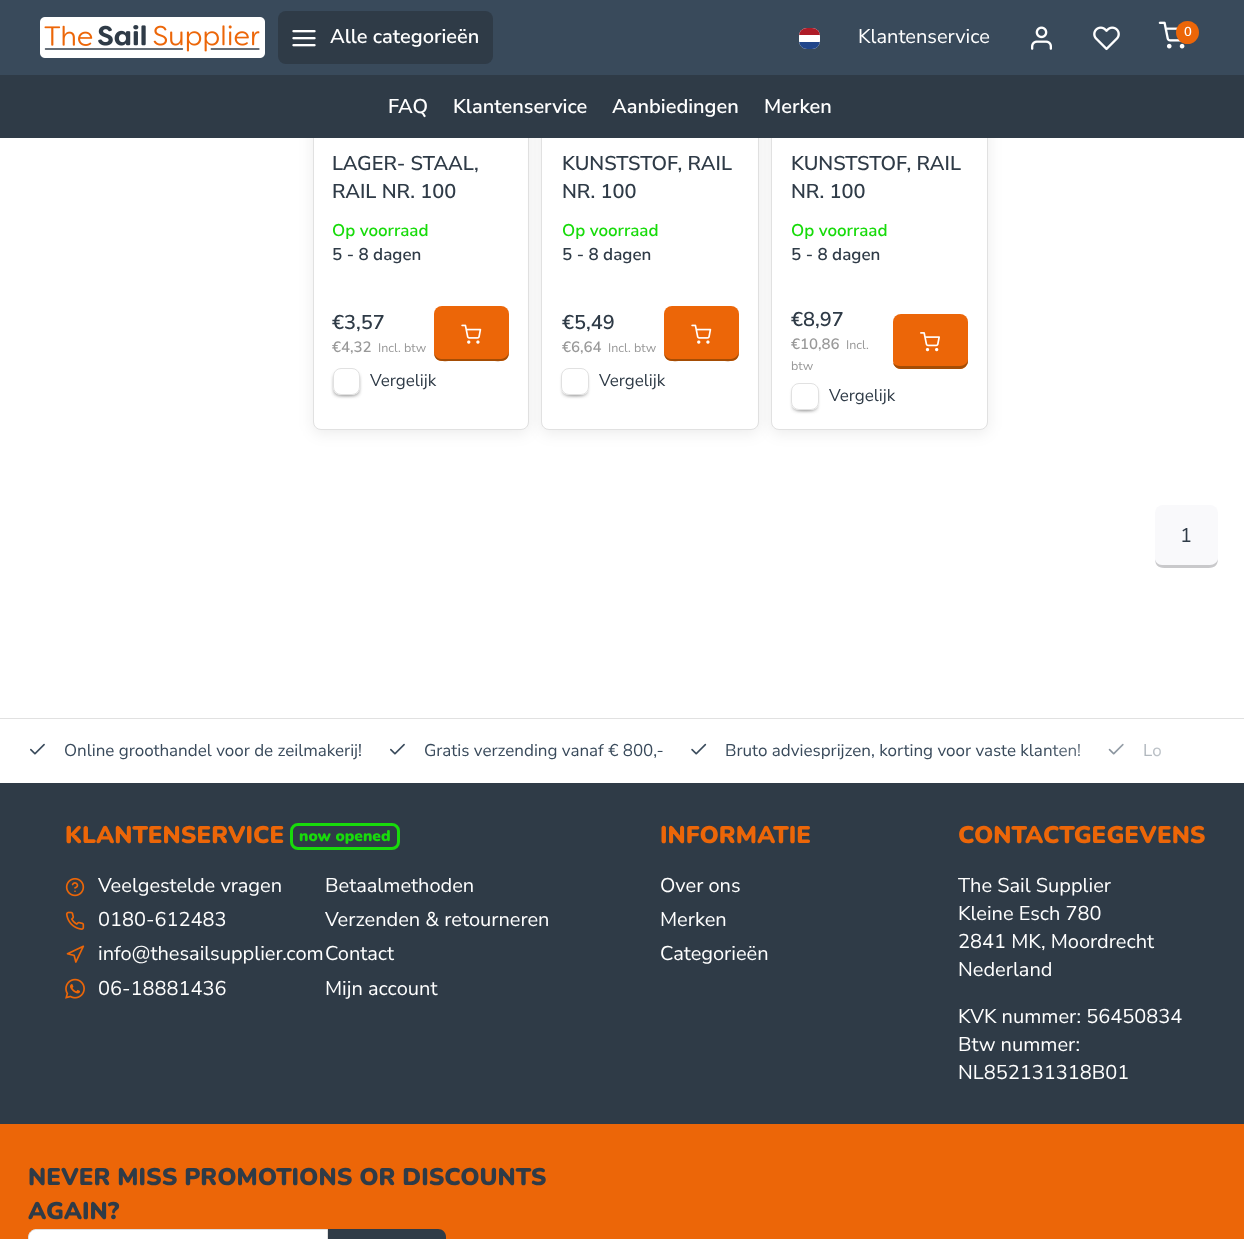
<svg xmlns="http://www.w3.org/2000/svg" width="1244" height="1239">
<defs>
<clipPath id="clip1"><rect x="799" y="28" width="21" height="21" rx="8"/></clipPath>
<clipPath id="clip2"><path d="M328 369h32v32h-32zm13-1h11c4.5 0 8 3.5 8 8v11c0 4.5-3.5 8-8 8h-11c-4.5 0-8-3.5-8-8v-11c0-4.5 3.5-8 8-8z" clip-rule="evenodd"/></clipPath>
<clipPath id="clip3"><path d="M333 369h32v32h-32zm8-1h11c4.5 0 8 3.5 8 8v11c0 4.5-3.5 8-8 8h-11c-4.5 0-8-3.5-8-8v-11c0-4.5 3.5-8 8-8z" clip-rule="evenodd"/></clipPath>
<clipPath id="clip4"><path d="M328 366h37v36h-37zm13 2h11c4.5 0 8 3.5 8 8v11c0 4.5-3.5 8-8 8h-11c-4.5 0-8-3.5-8-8v-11c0-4.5 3.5-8 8-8z" clip-rule="evenodd"/></clipPath>
<clipPath id="clip5"><path d="M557 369h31v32h-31zm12-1h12c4.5 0 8 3.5 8 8v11c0 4.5-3.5 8-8 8h-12c-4.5 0-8-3.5-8-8v-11c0-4.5 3.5-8 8-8z" clip-rule="evenodd"/></clipPath>
<clipPath id="clip6"><path d="M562 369h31v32h-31zm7-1h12c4.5 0 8 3.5 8 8v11c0 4.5-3.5 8-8 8h-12c-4.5 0-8-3.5-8-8v-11c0-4.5 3.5-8 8-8z" clip-rule="evenodd"/></clipPath>
<clipPath id="clip7"><path d="M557 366h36v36h-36zm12 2h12c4.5 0 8 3.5 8 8v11c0 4.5-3.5 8-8 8h-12c-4.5 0-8-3.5-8-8v-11c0-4.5 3.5-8 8-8z" clip-rule="evenodd"/></clipPath>
<clipPath id="clip8"><path d="M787 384h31v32h-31zm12-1h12c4.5 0 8 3.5 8 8v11c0 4.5-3.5 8-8 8h-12c-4.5 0-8-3.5-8-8v-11c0-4.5 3.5-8 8-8z" clip-rule="evenodd"/></clipPath>
<clipPath id="clip9"><path d="M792 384h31v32h-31zm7-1h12c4.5 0 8 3.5 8 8v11c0 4.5-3.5 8-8 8h-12c-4.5 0-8-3.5-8-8v-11c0-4.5 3.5-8 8-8z" clip-rule="evenodd"/></clipPath>
<clipPath id="clip10"><path d="M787 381h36v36h-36zm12 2h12c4.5 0 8 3.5 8 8v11c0 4.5-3.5 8-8 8h-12c-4.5 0-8-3.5-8-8v-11c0-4.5 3.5-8 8-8z" clip-rule="evenodd"/></clipPath>
<linearGradient id="g1" gradientUnits="userSpaceOnUse" x1="1039" y1="751" x2="1218" y2="751"><stop offset="0" stop-color="#fff" stop-opacity="0"/><stop offset="1" stop-color="#fff"/></linearGradient>
</defs>
<rect width="100%" height="100%" fill="#fff"/>
<rect x="313" y="-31" width="216" height="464" rx="8" fill="#00000014" filter="blur(7.5px)"/>
<rect x="313.5" y="-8.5" width="215" height="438" rx="7.5" fill="#fff" stroke="#e1e1e1"/>
<rect x="541" y="-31" width="218" height="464" rx="8" fill="#00000014" filter="blur(7.5px)"/>
<rect x="541.5" y="-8.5" width="217" height="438" rx="7.5" fill="#fff" stroke="#e1e1e1"/>
<rect x="771" y="-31" width="217" height="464" rx="8" fill="#00000014" filter="blur(7.5px)"/>
<rect x="771.5" y="-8.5" width="216" height="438" rx="7.5" fill="#fff" stroke="#e1e1e1"/>
<rect width="1244" height="75" fill="#394a5b"/>
<image x="40" y="17" width="225" height="41" href="media/1.png"/>
<rect x="278" y="11" width="215" height="53" rx="8" fill="#2f3b47"/>
<image x="292" y="30" width="24" height="17" href="media/2.png"/>
<text x="330" y="43" style="font-family:Nunito Sans;font-size:20px;font-weight:600;fill:#fff">Alle categorieën</text>
<rect x="799" y="28" width="21" height="21" rx="8" fill="#fff"/>
<g clip-path="url(#clip1)">
<rect x="799" y="42" width="21" height="7" fill="#21468b"/>
<rect x="799" y="28" width="21" height="7" fill="#ae1c28"/>
</g>
<text x="858" y="43" style="font-family:Nunito Sans;font-size:20px;fill:#fff">Klantenservice</text>
<image x="1031" y="26" width="21" height="24" href="media/3.png"/>
<image x="1093" y="26" width="27" height="25" href="media/4.png"/>
<image x="1158" y="21" width="27" height="28" href="media/5.png"/>
<circle cx="1187.5" cy="32.5" r="11.5" fill="#ec6608"/>
<text x="1184" y="36" style="font-family:Nunito Sans;font-size:13px;font-weight:600;fill:#fff">0</text>
<rect y="75" width="1244" height="63" fill="#2f3b47"/>
<text x="388" y="113" style="font-family:Nunito Sans;font-size:20px;font-weight:600;fill:#fff">FAQ</text>
<text x="453" y="113" style="font-family:Nunito Sans;font-size:20px;font-weight:600;fill:#fff">Klantenservice</text>
<text x="612" y="113" style="font-family:Nunito Sans;font-size:20px;font-weight:600;fill:#fff">Aanbiedingen</text>
<text x="764" y="113" style="font-family:Nunito Sans;font-size:20px;font-weight:600;fill:#fff">Merken</text>
<text x="332" y="170" style="font-family:Nunito Sans;font-size:20px;font-weight:600;fill:#2f3b47">LAGER- STAAL,</text>
<text x="332" y="198" style="font-family:Nunito Sans;font-size:20px;font-weight:600;fill:#2f3b47">RAIL NR. 100</text>
<text x="332" y="236" style="font-family:Nunito Sans;font-size:17px;font-weight:600;fill:#18db0b">Op voorraad</text>
<text x="332" y="260" style="font-family:Nunito Sans;font-size:17px;font-weight:600;fill:#2f3b47">5 - 8 dagen</text>
<text x="332" y="329" style="font-family:Nunito Sans;font-size:20px;font-weight:600;fill:#2f3b47">€3,57</text>
<text x="332" y="352" style="font-family:Nunito Sans;font-size:15px;font-weight:600;fill:#999">€4,32</text>
<text x="378" y="352" style="font-family:Nunito Sans;font-size:12.5px;fill:#999">Incl. btw</text>
<rect x="434" y="306" width="75" height="55" rx="8" fill="#ec6608"/>
<path d="M434 351c0 12 8 10 18 10h39c10 0 18 2 18-10c0 4-4 8-8 8h-60c-4 0-7-4-7-8z" fill="#a54d05"/>
<image x="461" y="324" width="21" height="20" href="media/6.png"/>
<g clip-path="url(#clip2)">
<rect x="335" y="376" width="18" height="18" rx="2.5" fill="#999" filter="blur(2px)"/>
</g>
<g clip-path="url(#clip3)">
<rect x="340" y="376" width="18" height="18" rx="2.5" fill="#999" filter="blur(2px)"/>
</g>
<g clip-path="url(#clip4)">
<rect x="335" y="373" width="23" height="22" rx="5" fill="#999" filter="blur(2px)"/>
</g>
<rect x="333.5" y="368.5" width="26" height="26" rx="7.5" fill="none" stroke="#e1e1e1"/>
<text x="370" y="386" style="font-family:Nunito Sans;font-size:17px;fill:#2f3b47">Vergelijk</text>
<text x="562" y="170" style="font-family:Nunito Sans;font-size:20px;font-weight:600;fill:#2f3b47">KUNSTSTOF, RAIL</text>
<text x="562" y="198" style="font-family:Nunito Sans;font-size:20px;font-weight:600;fill:#2f3b47">NR. 100</text>
<text x="562" y="236" style="font-family:Nunito Sans;font-size:17px;font-weight:600;fill:#18db0b">Op voorraad</text>
<text x="562" y="260" style="font-family:Nunito Sans;font-size:17px;font-weight:600;fill:#2f3b47">5 - 8 dagen</text>
<text x="562" y="329" style="font-family:Nunito Sans;font-size:20px;font-weight:600;fill:#2f3b47">€5,49</text>
<text x="562" y="352" style="font-family:Nunito Sans;font-size:15px;font-weight:600;fill:#999">€6,64</text>
<text x="608" y="352" style="font-family:Nunito Sans;font-size:12.5px;fill:#999">Incl. btw</text>
<rect x="664" y="306" width="75" height="55" rx="8" fill="#ec6608"/>
<path d="M664 351c0 12 8 10 18 10h39c10 0 18 2 18-10c0 4-4 8-8 8h-60c-4 0-7-4-7-8z" fill="#a54d05"/>
<image x="691" y="324" width="21" height="20" href="media/6.png"/>
<g clip-path="url(#clip5)">
<rect x="564" y="376" width="17" height="18" rx="2.5" fill="#999" filter="blur(2px)"/>
</g>
<g clip-path="url(#clip6)">
<rect x="569" y="376" width="17" height="18" rx="2.5" fill="#999" filter="blur(2px)"/>
</g>
<g clip-path="url(#clip7)">
<rect x="564" y="373" width="22" height="22" rx="5" fill="#999" filter="blur(2px)"/>
</g>
<rect x="561.5" y="368.5" width="27" height="26" rx="7.5" fill="none" stroke="#e1e1e1"/>
<text x="599" y="386" style="font-family:Nunito Sans;font-size:17px;fill:#2f3b47">Vergelijk</text>
<text x="791" y="170" style="font-family:Nunito Sans;font-size:20px;font-weight:600;fill:#2f3b47">KUNSTSTOF, RAIL</text>
<text x="791" y="198" style="font-family:Nunito Sans;font-size:20px;font-weight:600;fill:#2f3b47">NR. 100</text>
<text x="791" y="236" style="font-family:Nunito Sans;font-size:17px;font-weight:600;fill:#18db0b">Op voorraad</text>
<text x="791" y="260" style="font-family:Nunito Sans;font-size:17px;font-weight:600;fill:#2f3b47">5 - 8 dagen</text>
<text x="791" y="326" style="font-family:Nunito Sans;font-size:20px;font-weight:600;fill:#2f3b47">€8,97</text>
<text x="791" y="349" style="font-family:Nunito Sans;font-size:15px;font-weight:600;fill:#999">€10,86</text>
<text x="846" y="349" style="font-family:Nunito Sans;font-size:12.5px;fill:#999">Incl.</text>
<text x="791" y="370" style="font-family:Nunito Sans;font-size:12.5px;fill:#999">btw</text>
<rect x="893" y="314" width="75" height="55" rx="8" fill="#ec6608"/>
<path d="M893 363c1 3 4 6 8 6h59c4 0 8-4 8-8v-2c0 4-4 7-8 7h-60c-3 0-5-1-7-3z" fill="#a54d05"/>
<image x="920" y="332" width="20" height="20" href="media/7.png"/>
<g clip-path="url(#clip8)">
<rect x="794" y="391" width="17" height="18" rx="2.5" fill="#999" filter="blur(2px)"/>
</g>
<g clip-path="url(#clip9)">
<rect x="799" y="391" width="17" height="18" rx="2.5" fill="#999" filter="blur(2px)"/>
</g>
<g clip-path="url(#clip10)">
<rect x="794" y="388" width="22" height="22" rx="5" fill="#999" filter="blur(2px)"/>
</g>
<rect x="791.5" y="383.5" width="27" height="26" rx="7.5" fill="none" stroke="#e1e1e1"/>
<text x="829" y="401" style="font-family:Nunito Sans;font-size:17px;fill:#2f3b47">Vergelijk</text>
<rect x="1155" y="505" width="63" height="63" rx="8" fill="#f9f9fb"/>
<path d="M1155 558c0 11 7 10 16 10h31c9 0 16 1 16-10c0 4-4 7-8 7h-48c-4 0-7-3-7-7z" fill="#c9c9cb"/>
<text x="1180" y="542" style="font-family:Nunito Sans;font-size:20px;fill:#2f3b47">1</text>
<rect y="718" width="1244" height="1" fill="#e1e1e1"/>
<image x="30" y="743" width="15" height="12" href="media/8.png"/>
<text x="64" y="756" style="font-family:Nunito Sans;font-size:17px;fill:#394a5b">Online groothandel voor de zeilmakerij!</text>
<image x="390" y="743" width="15" height="12" href="media/8.png"/>
<text x="424" y="756" style="font-family:Nunito Sans;font-size:17px;fill:#394a5b">Gratis verzending vanaf € 800,-</text>
<image x="691" y="743" width="16" height="12" href="media/9.png"/>
<text x="725" y="756" style="font-family:Nunito Sans;font-size:17px;fill:#394a5b">Bruto adviesprijzen, korting voor vaste klanten!</text>
<image x="1108" y="743" width="16" height="12" href="media/10.png"/>
<text x="1143" y="756" style="font-family:Nunito Sans;font-size:17px;fill:#394a5b">Lo</text>
<rect x="1045" y="743" width="116" height="14" fill="url(#g1)"/>
<rect y="783" width="1244" height="341" fill="#2f3b47"/>
<text x="65" y="843" style="font-family:Nunito;font-size:24px;font-weight:200;fill:#ec6608">KLANTENSERVICE</text>
<rect x="291.5" y="824.5" width="107" height="24" rx="6.5" fill="none" stroke="#18db0b" stroke-width="3"/>
<text x="299" y="841" style="font-family:Nunito;font-size:15.5px;font-weight:200;fill:#18db0b">now opened</text>
<image x="65" y="877" width="20" height="20" href="media/11.png"/>
<text x="98" y="892" style="font-family:Nunito Sans;font-size:20px;fill:#fff">Veelgestelde vragen</text>
<image x="65" y="911" width="20" height="19" href="media/12.png"/>
<text x="98" y="926" style="font-family:Nunito Sans;font-size:20px;fill:#fff">0180-612483</text>
<image x="66" y="945" width="19" height="18" href="media/13.png"/>
<text x="98" y="960" style="font-family:Nunito Sans;font-size:20px;fill:#fff">info@thesailsupplier.com</text>
<image x="65" y="978" width="20" height="21" href="media/14.png"/>
<text x="98" y="995" style="font-family:Nunito Sans;font-size:20px;fill:#fff">06-18881436</text>
<text x="325" y="892" style="font-family:Nunito Sans;font-size:20px;fill:#fff">Betaalmethoden</text>
<text x="325" y="926" style="font-family:Nunito Sans;font-size:20px;fill:#fff">Verzenden &amp; retourneren</text>
<text x="325" y="960" style="font-family:Nunito Sans;font-size:20px;fill:#fff">Contact</text>
<text x="325" y="995" style="font-family:Nunito Sans;font-size:20px;fill:#fff">Mijn account</text>
<text x="660" y="843" style="font-family:Nunito;font-size:24px;font-weight:200;fill:#ec6608">INFORMATIE</text>
<text x="660" y="892" style="font-family:Nunito Sans;font-size:20px;fill:#fff">Over ons</text>
<text x="660" y="926" style="font-family:Nunito Sans;font-size:20px;fill:#fff">Merken</text>
<text x="660" y="960" style="font-family:Nunito Sans;font-size:20px;fill:#fff">Categorieën</text>
<text x="958" y="843" style="font-family:Nunito;font-size:24px;font-weight:200;fill:#ec6608">CONTACTGEGEVENS</text>
<text x="958" y="892" style="font-family:Nunito Sans;font-size:20px;fill:#fff">The Sail Supplier</text>
<text x="958" y="920" style="font-family:Nunito Sans;font-size:20px;fill:#fff">Kleine Esch 780</text>
<text x="958" y="948" style="font-family:Nunito Sans;font-size:20px;fill:#fff">2841 MK, Moordrecht</text>
<text x="958" y="976" style="font-family:Nunito Sans;font-size:20px;fill:#fff">Nederland</text>
<text x="958" y="1023" style="font-family:Nunito Sans;font-size:20px;fill:#fff">KVK nummer: 56450834</text>
<text x="958" y="1051" style="font-family:Nunito Sans;font-size:20px;fill:#fff">Btw nummer:</text>
<text x="958" y="1079" style="font-family:Nunito Sans;font-size:20px;fill:#fff">NL852131318B01</text>
<rect y="1124" width="1244" height="115" fill="#ec6608"/>
<text x="28" y="1185" style="font-family:Nunito;font-size:24px;font-weight:200;fill:#2f3b47">NEVER MISS PROMOTIONS OR DISCOUNTS</text>
<text x="28" y="1219" style="font-family:Nunito;font-size:24px;font-weight:200;fill:#2f3b47">AGAIN?</text>
<path d="M36 1229.5h291.5v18h-291.5c-4 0-7.5-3.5-7.5-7.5v-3c0-4 3.5-7.5 7.5-7.5z" fill="#fff" stroke="#e1e1e1"/>
<path d="M328 1229h110c4.5 0 8 3.5 8 8v2c0 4.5-3.5 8-8 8h-110z" fill="#2f3b47"/>
</svg>
